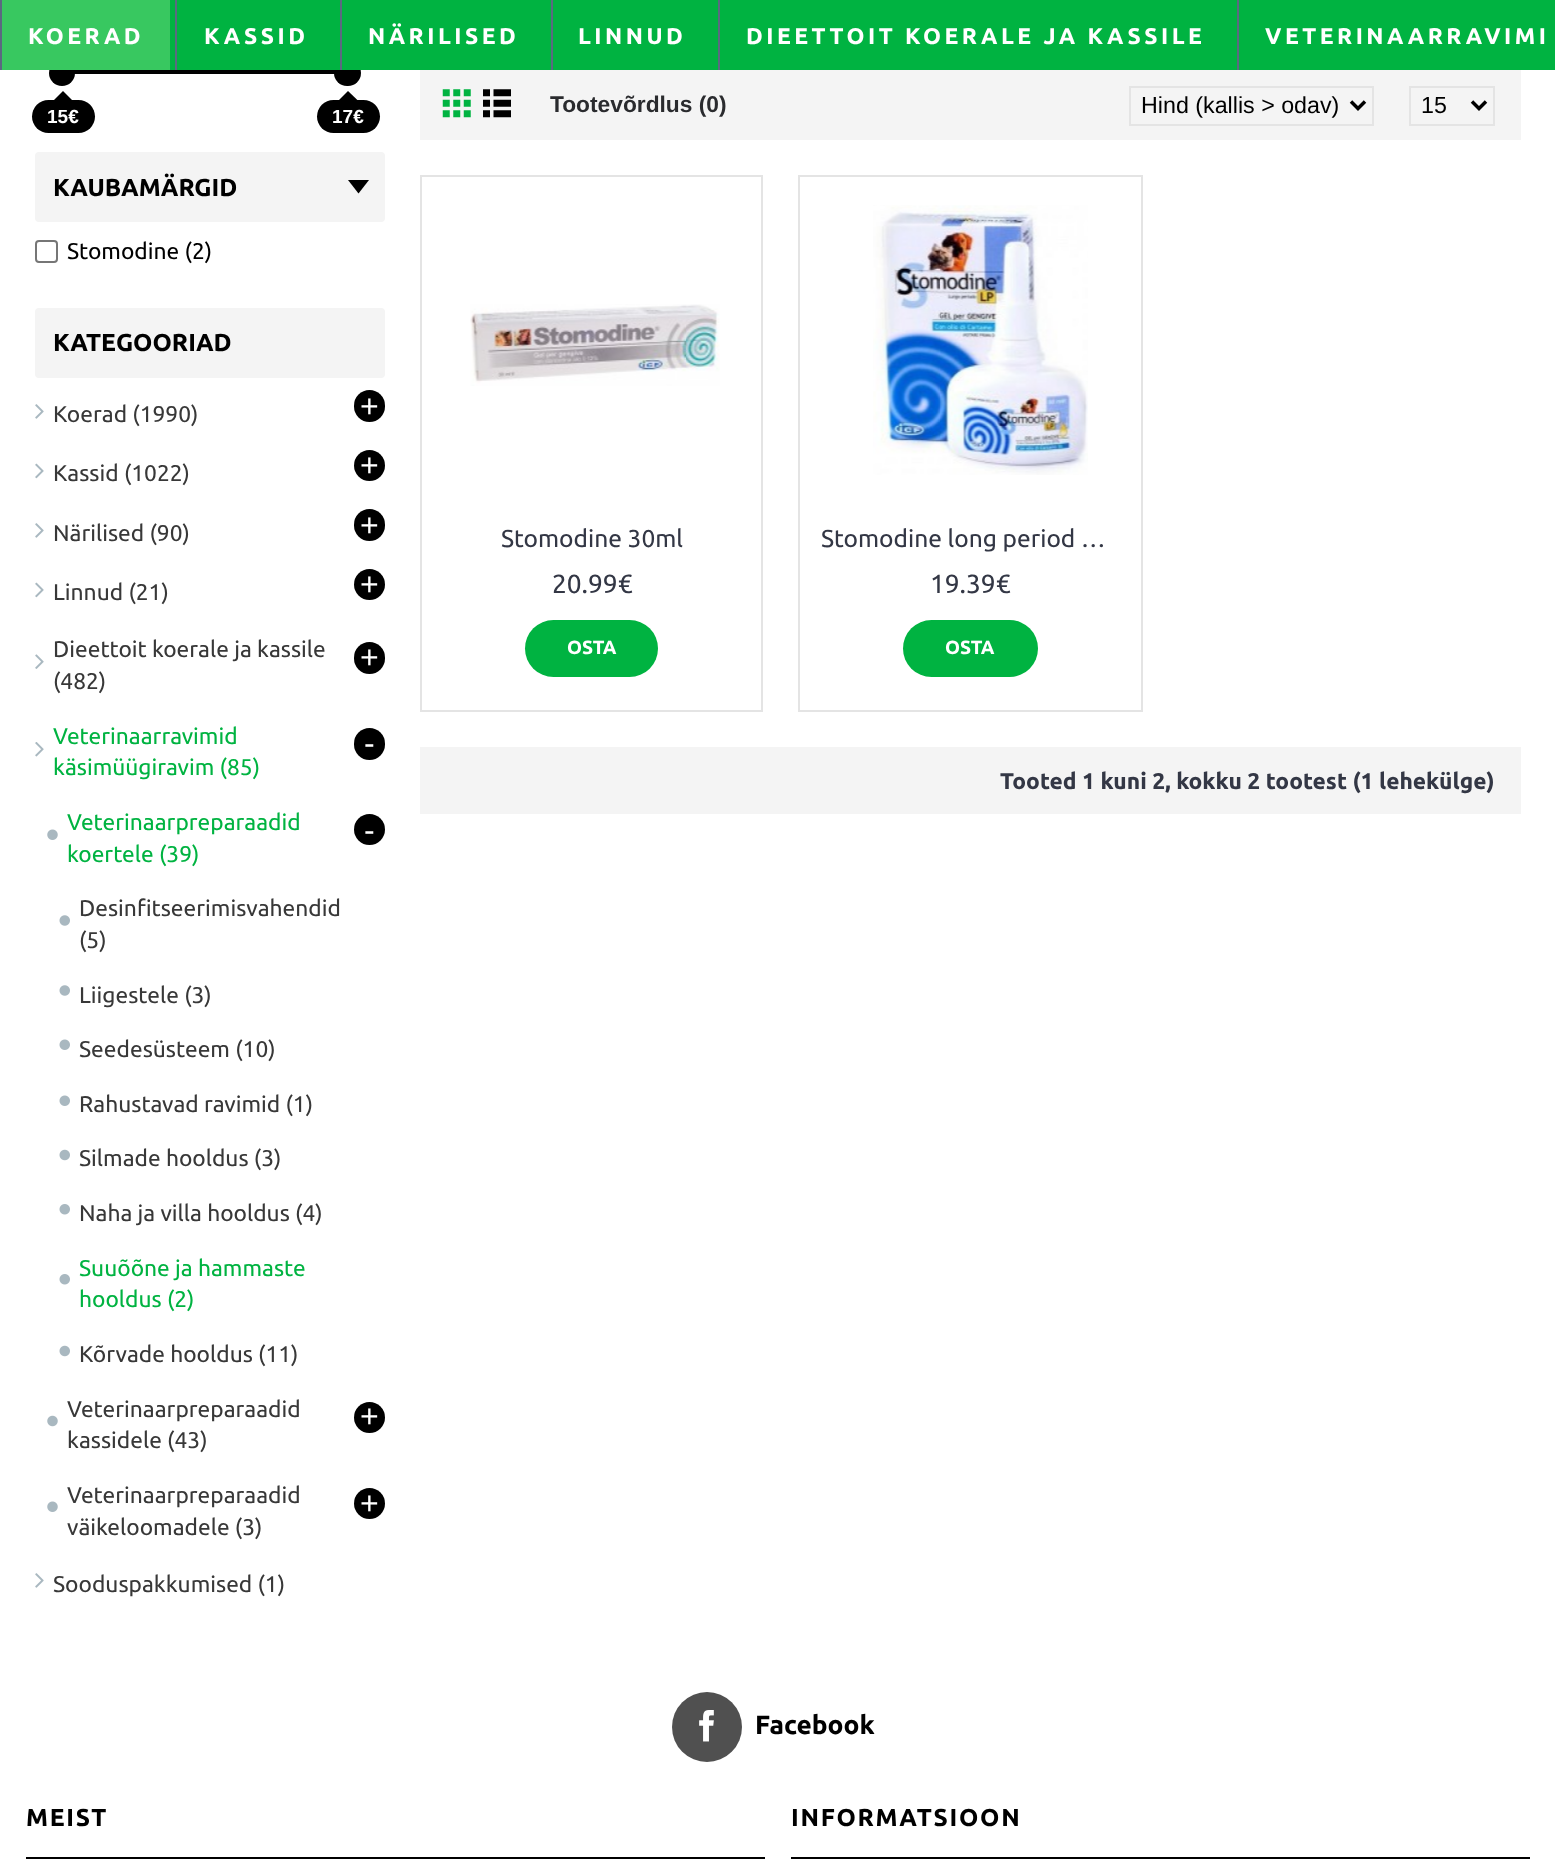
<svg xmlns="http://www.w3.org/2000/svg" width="1555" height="1863">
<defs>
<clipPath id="clip1"><rect x="550" y="70" width="176" height="70"/></clipPath>
</defs>
<rect width="100%" height="100%" fill="#fff"/>
<rect x="74" y="70" width="261" height="4" fill="#000"/>
<rect x="334" y="60" width="27" height="26" rx="13" fill="#000"/>
<rect x="170" width="1385" height="70" fill="#00b341"/>
<circle cx="62" cy="73" r="13" fill="#000"/>
<rect x="2" width="168" height="70" fill="#38c860"/>
<rect width="2" height="70" fill="#5a6981"/>
<text x="28" y="44" style="font-family:Ubuntu;font-size:22.75px;font-weight:bold;letter-spacing:3.5px;fill:#fff">KOERAD</text>
<rect x="175" width="2" height="70" fill="#5a6981"/>
<text x="204" y="44" style="font-family:Ubuntu;font-size:22.75px;font-weight:bold;letter-spacing:3.5px;fill:#fff">KASSID</text>
<rect x="340" width="2" height="70" fill="#5a6981"/>
<text x="368" y="44" style="font-family:Ubuntu;font-size:22.75px;font-weight:bold;letter-spacing:3.5px;fill:#fff">NÄRILISED</text>
<rect x="551" width="2" height="70" fill="#5a6981"/>
<text x="578" y="44" style="font-family:Ubuntu;font-size:22.75px;font-weight:bold;letter-spacing:3.5px;fill:#fff">LINNUD</text>
<rect x="718" width="2" height="70" fill="#5a6981"/>
<text x="746" y="44" style="font-family:Ubuntu;font-size:22.75px;font-weight:bold;letter-spacing:3.5px;fill:#fff">DIEETTOIT KOERALE JA KASSILE</text>
<rect x="1237" width="2" height="70" fill="#5a6981"/>
<text x="1265" y="44" style="font-family:Ubuntu;font-size:22.75px;font-weight:bold;letter-spacing:3.5px;fill:#fff">VETERINAARRAVIMI</text>
<rect x="32" y="100" width="63" height="33" rx="16.5" fill="#000"/>
<path d="M75 103h-24l12-12z" fill="#000"/>
<text x="47" y="123" style="font-family:Liberation Sans;font-size:19px;font-weight:bold;fill:#fff">15€</text>
<rect x="317" y="100" width="63" height="33" rx="16.5" fill="#000"/>
<path d="M360.5 103h-24.5l12-12z" fill="#000"/>
<text x="332" y="123" style="font-family:Liberation Sans;font-size:19px;font-weight:bold;fill:#fff">17€</text>
<rect x="35" y="152" width="350" height="70" rx="4" fill="#f4f4f4"/>
<text x="53" y="196" style="font-family:Ubuntu;font-size:24.5px;font-weight:bold;fill:#000">KAUBAMÄRGID</text>
<path d="M369 180h-21l10.5 13.5z" fill="#000"/>
<rect x="36" y="241" width="21" height="21" rx="3" fill="none" stroke="#767676" stroke-width="2"/>
<text x="67" y="259" style="font-family:Ubuntu;font-size:22.75px;fill:#000">Stomodine (2)</text>
<rect x="35" y="308" width="350" height="70" rx="4" fill="#f4f4f4"/>
<text x="53" y="351" style="font-family:Ubuntu;font-size:24.5px;font-weight:bold;fill:#000">KATEGOORIAD</text>
<image x="35" y="404" width="9" height="15" href="media/1.png"/>
<text x="53" y="422" style="font-family:Ubuntu;font-size:22.75px;fill:#383838">Koerad (1990)</text>
<rect x="354" y="390" width="31" height="32" rx="15.5" fill="#000"/>
<text x="360" y="417" style="font-family:Liberation Sans;font-size:32px;fill:#fff">+</text>
<image x="35" y="463" width="9" height="16" href="media/2.png"/>
<text x="53" y="481" style="font-family:Ubuntu;font-size:22.75px;fill:#383838">Kassid (1022)</text>
<circle cx="369.5" cy="465.5" r="15.5" fill="#000"/>
<text x="360" y="476" style="font-family:Liberation Sans;font-size:32px;fill:#fff">+</text>
<image x="35" y="523" width="9" height="15" href="media/1.png"/>
<text x="53" y="541" style="font-family:Ubuntu;font-size:22.75px;fill:#383838">Närilised (90)</text>
<rect x="354" y="509" width="31" height="32" rx="15.5" fill="#000"/>
<text x="360" y="536" style="font-family:Liberation Sans;font-size:32px;fill:#fff">+</text>
<image x="35" y="582" width="9" height="16" href="media/2.png"/>
<text x="53" y="600" style="font-family:Ubuntu;font-size:22.75px;fill:#383838">Linnud (21)</text>
<circle cx="369.5" cy="584.5" r="15.5" fill="#000"/>
<text x="360" y="595" style="font-family:Liberation Sans;font-size:32px;fill:#fff">+</text>
<image x="35" y="654" width="9" height="15" href="media/3.png"/>
<text x="53" y="657" style="font-family:Ubuntu;font-size:22.75px;fill:#383838">Dieettoit koerale ja kassile</text>
<text x="53" y="689" style="font-family:Ubuntu;font-size:22.75px;fill:#383838">(482)</text>
<rect x="354" y="642" width="31" height="32" rx="15.5" fill="#000"/>
<text x="360" y="668" style="font-family:Liberation Sans;font-size:32px;fill:#fff">+</text>
<image x="35" y="742" width="9" height="15" href="media/4.png"/>
<text x="53" y="744" style="font-family:Ubuntu;font-size:22.75px;fill:#00b341">Veterinaarravimid</text>
<text x="53" y="775" style="font-family:Ubuntu;font-size:22.75px;fill:#00b341">käsimüügiravim (85)</text>
<rect x="354" y="728" width="31" height="32" rx="15.5" fill="#000"/>
<text x="364" y="754" style="font-family:Liberation Sans;font-size:32px;fill:#fff">-</text>
<image x="47" y="829" width="11" height="11" href="media/5.png"/>
<text x="67" y="830" style="font-family:Ubuntu;font-size:22.75px;fill:#00b341">Veterinaarpreparaadid</text>
<text x="67" y="862" style="font-family:Ubuntu;font-size:22.75px;fill:#00b341">koertele (39)</text>
<circle cx="369.5" cy="829.5" r="15.5" fill="#000"/>
<text x="364" y="841" style="font-family:Liberation Sans;font-size:32px;fill:#fff">-</text>
<image x="59" y="915" width="11" height="11" href="media/6.png"/>
<text x="79" y="916" style="font-family:Ubuntu;font-size:22.75px;fill:#383838">Desinfitseerimisvahendid</text>
<text x="79" y="948" style="font-family:Ubuntu;font-size:22.75px;fill:#383838">(5)</text>
<image x="59" y="985" width="11" height="11" href="media/6.png"/>
<text x="79" y="1003" style="font-family:Ubuntu;font-size:22.75px;fill:#383838">Liigestele (3)</text>
<image x="59" y="1039" width="11" height="11" href="media/7.png"/>
<text x="79" y="1057" style="font-family:Ubuntu;font-size:22.75px;fill:#383838">Seedesüsteem (10)</text>
<image x="59" y="1095" width="11" height="11" href="media/7.png"/>
<text x="79" y="1112" style="font-family:Ubuntu;font-size:22.75px;fill:#383838">Rahustavad ravimid (1)</text>
<image x="59" y="1149" width="11" height="12" href="media/8.png"/>
<text x="79" y="1166" style="font-family:Ubuntu;font-size:22.75px;fill:#383838">Silmade hooldus (3)</text>
<image x="59" y="1204" width="11" height="11" href="media/9.png"/>
<text x="79" y="1221" style="font-family:Ubuntu;font-size:22.75px;fill:#383838">Naha ja villa hooldus (4)</text>
<image x="59" y="1274" width="11" height="11" href="media/9.png"/>
<text x="79" y="1276" style="font-family:Ubuntu;font-size:22.75px;fill:#00b341">Suuõõne ja hammaste</text>
<text x="79" y="1307" style="font-family:Ubuntu;font-size:22.75px;fill:#00b341">hooldus (2)</text>
<image x="59" y="1345" width="11" height="12" href="media/8.png"/>
<text x="79" y="1362" style="font-family:Ubuntu;font-size:22.75px;fill:#383838">Kõrvade hooldus (11)</text>
<image x="47" y="1415" width="11" height="12" href="media/10.png"/>
<text x="67" y="1417" style="font-family:Ubuntu;font-size:22.75px;fill:#383838">Veterinaarpreparaadid</text>
<text x="67" y="1448" style="font-family:Ubuntu;font-size:22.75px;fill:#383838">kassidele (43)</text>
<circle cx="369.5" cy="1417.5" r="15.5" fill="#000"/>
<text x="360" y="1427" style="font-family:Liberation Sans;font-size:32px;fill:#fff">+</text>
<image x="47" y="1501" width="11" height="11" href="media/5.png"/>
<text x="67" y="1503" style="font-family:Ubuntu;font-size:22.75px;fill:#383838">Veterinaarpreparaadid</text>
<text x="67" y="1535" style="font-family:Ubuntu;font-size:22.75px;fill:#383838">väikeloomadele (3)</text>
<circle cx="369.5" cy="1503.5" r="15.5" fill="#000"/>
<text x="360" y="1514" style="font-family:Liberation Sans;font-size:32px;fill:#fff">+</text>
<image x="35" y="1573" width="9" height="15" href="media/1.png"/>
<text x="53" y="1592" style="font-family:Ubuntu;font-size:22.75px;fill:#383838">Sooduspakkumised (1)</text>
<rect x="420" y="70" width="1101" height="70" fill="#f4f4f4"/>
<image x="442" y="89" width="29" height="29" href="media/11.png"/>
<image x="483" y="89" width="28" height="29" href="media/12.png"/>
<g clip-path="url(#clip1)">
<text x="550" y="112" style="font-family:Liberation Sans;font-size:22.75px;font-weight:bold;fill:#2a2b2e">Tootevõrdlus (0)</text>
</g>
<rect x="1130" y="87" width="243" height="38" fill="none" stroke="#e4e4e4" stroke-width="2"/>
<path d="M1351 101.5l7 7l7-7" fill="none" stroke="#000" stroke-width="3.5"/>
<text x="1141" y="113" style="font-family:Liberation Sans;font-size:23.25px;fill:#000">Hind (kallis &gt; odav)</text>
<rect x="1410" y="87" width="84" height="38" fill="none" stroke="#e4e4e4" stroke-width="2"/>
<path d="M1472 101.5l7 7l7-7" fill="none" stroke="#000" stroke-width="3.5"/>
<text x="1421" y="113" style="font-family:Liberation Sans;font-size:23.25px;fill:#000">15</text>
<rect x="421" y="176" width="341" height="535" fill="none" stroke="#e4e4e4" stroke-width="2"/>
<image x="470" y="304" width="250" height="82" href="media/13.png"/>
<text x="501" y="547" style="font-family:Ubuntu;font-size:24.5px;fill:#333745">Stomodine 30ml</text>
<text x="552" y="593" style="font-family:Ubuntu;font-size:26.25px;fill:#333745">20.99€</text>
<rect x="525" y="620" width="133" height="57" rx="28.5" fill="#00b341"/>
<text x="567" y="654" style="font-family:Ubuntu;font-size:19px;font-weight:bold;fill:#fff">OSTA</text>
<rect x="799" y="176" width="343" height="535" fill="none" stroke="#e4e4e4" stroke-width="2"/>
<image x="873" y="205" width="215" height="270" href="media/14.png"/>
<text x="821" y="547" style="font-family:Ubuntu;font-size:24.5px;fill:#333745">Stomodine long period …</text>
<text x="930" y="593" style="font-family:Ubuntu;font-size:26.25px;fill:#333745">19.39€</text>
<rect x="903" y="620" width="135" height="57" rx="28.5" fill="#00b341"/>
<text x="945" y="654" style="font-family:Ubuntu;font-size:19px;font-weight:bold;fill:#fff">OSTA</text>
<rect x="420" y="747" width="1101" height="67" fill="#f4f4f4"/>
<text x="1000" y="789" style="font-family:Ubuntu;font-size:22.75px;font-weight:bold;fill:#333745">Tooted 1 kuni 2, kokku 2 tootest (1 lehekülge)</text>
<circle cx="707" cy="1727" r="35" fill="#505050"/>
<image x="699" y="1710" width="15" height="32" href="media/15.png"/>
<text x="755" y="1734" style="font-family:Ubuntu;font-size:26.25px;font-weight:bold;fill:#000">Facebook</text>
<rect x="26" y="1857" width="739" height="2" fill="#000"/>
<text x="26" y="1826" style="font-family:Ubuntu;font-size:24.5px;font-weight:bold;letter-spacing:1.75px;fill:#000">MEIST</text>
<rect x="791" y="1857" width="739" height="2" fill="#000"/>
<text x="791" y="1826" style="font-family:Ubuntu;font-size:24.5px;font-weight:bold;letter-spacing:1.75px;fill:#000">INFORMATSIOON</text>
</svg>
